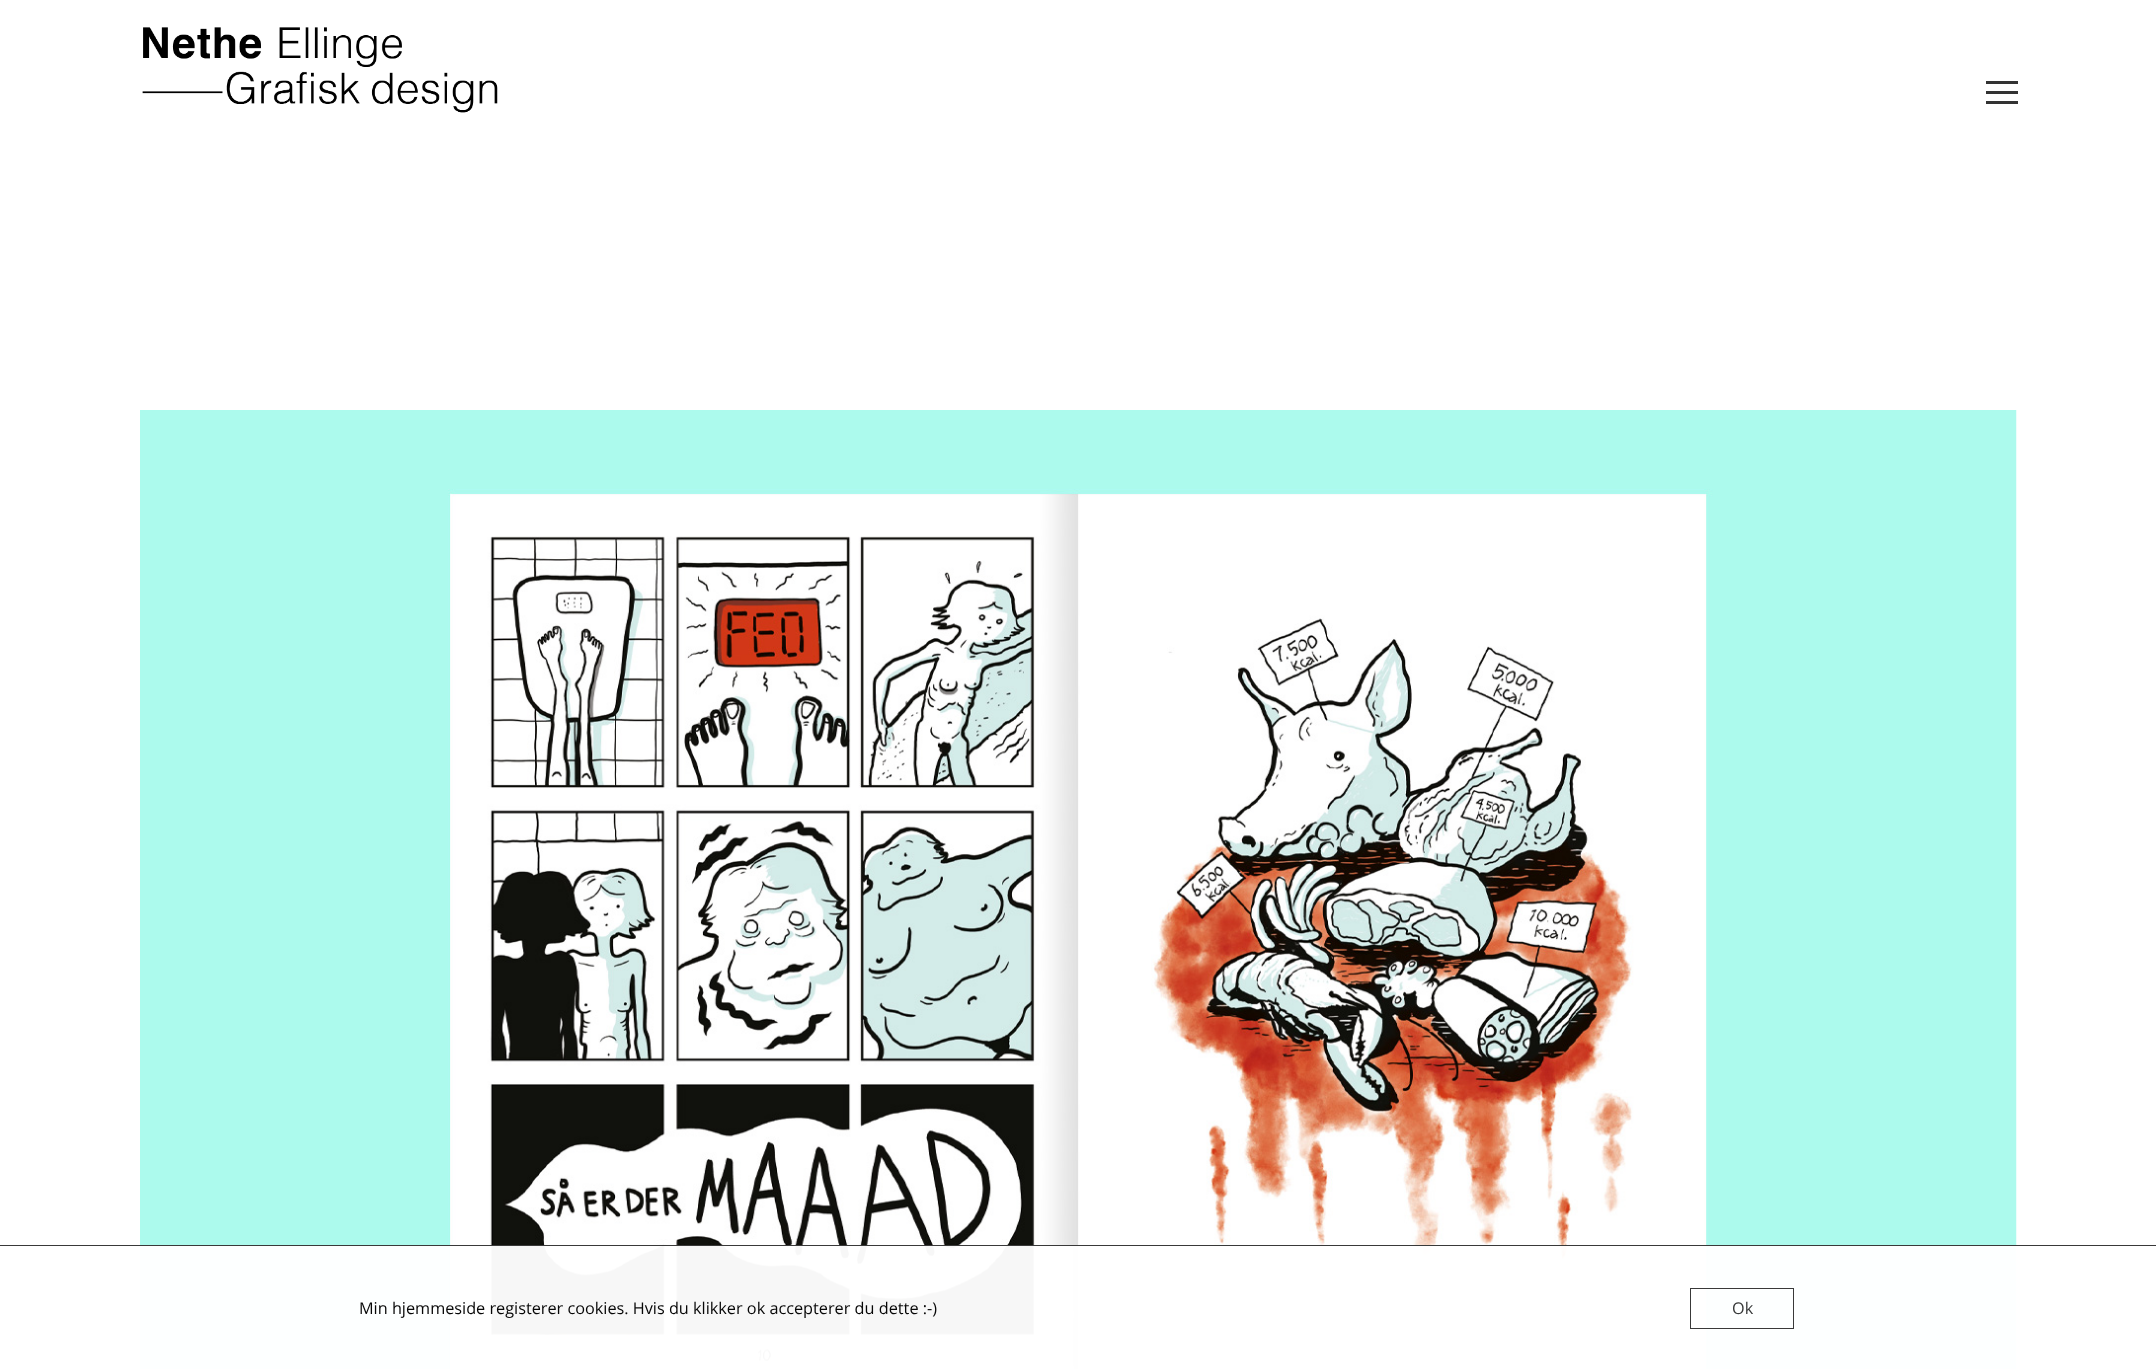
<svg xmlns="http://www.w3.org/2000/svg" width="2156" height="1369">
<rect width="100%" height="100%" fill="#fff"/>
<image x="142" y="27" width="356" height="86" href="media/1.png"/>
<rect x="1986" y="81" width="32" height="3" fill="#333"/>
<rect x="1986" y="91" width="32" height="3" fill="#333"/>
<rect x="1986" y="101" width="32" height="3" fill="#333"/>
<image x="140" y="410" width="1877" height="959" href="media/2.png"/>
<rect x="140" y="1245" width="1877" height="124" fill="#fffffff7"/>
<rect y="1245" width="2156" height="1" fill="#333333f7"/>
<text x="359" y="1314" style="font-family:Open Sans;font-size:16.25px;fill:#070707">Min hjemmeside registerer cookies. Hvis du klikker ok accepterer du dette :-)</text>
<rect x="1690.5" y="1288.5" width="103" height="40" fill="none" stroke="#333333f7"/>
<text x="1732" y="1314" style="font-family:Open Sans;font-size:16.25px;fill:#373939">Ok</text>
</svg>
